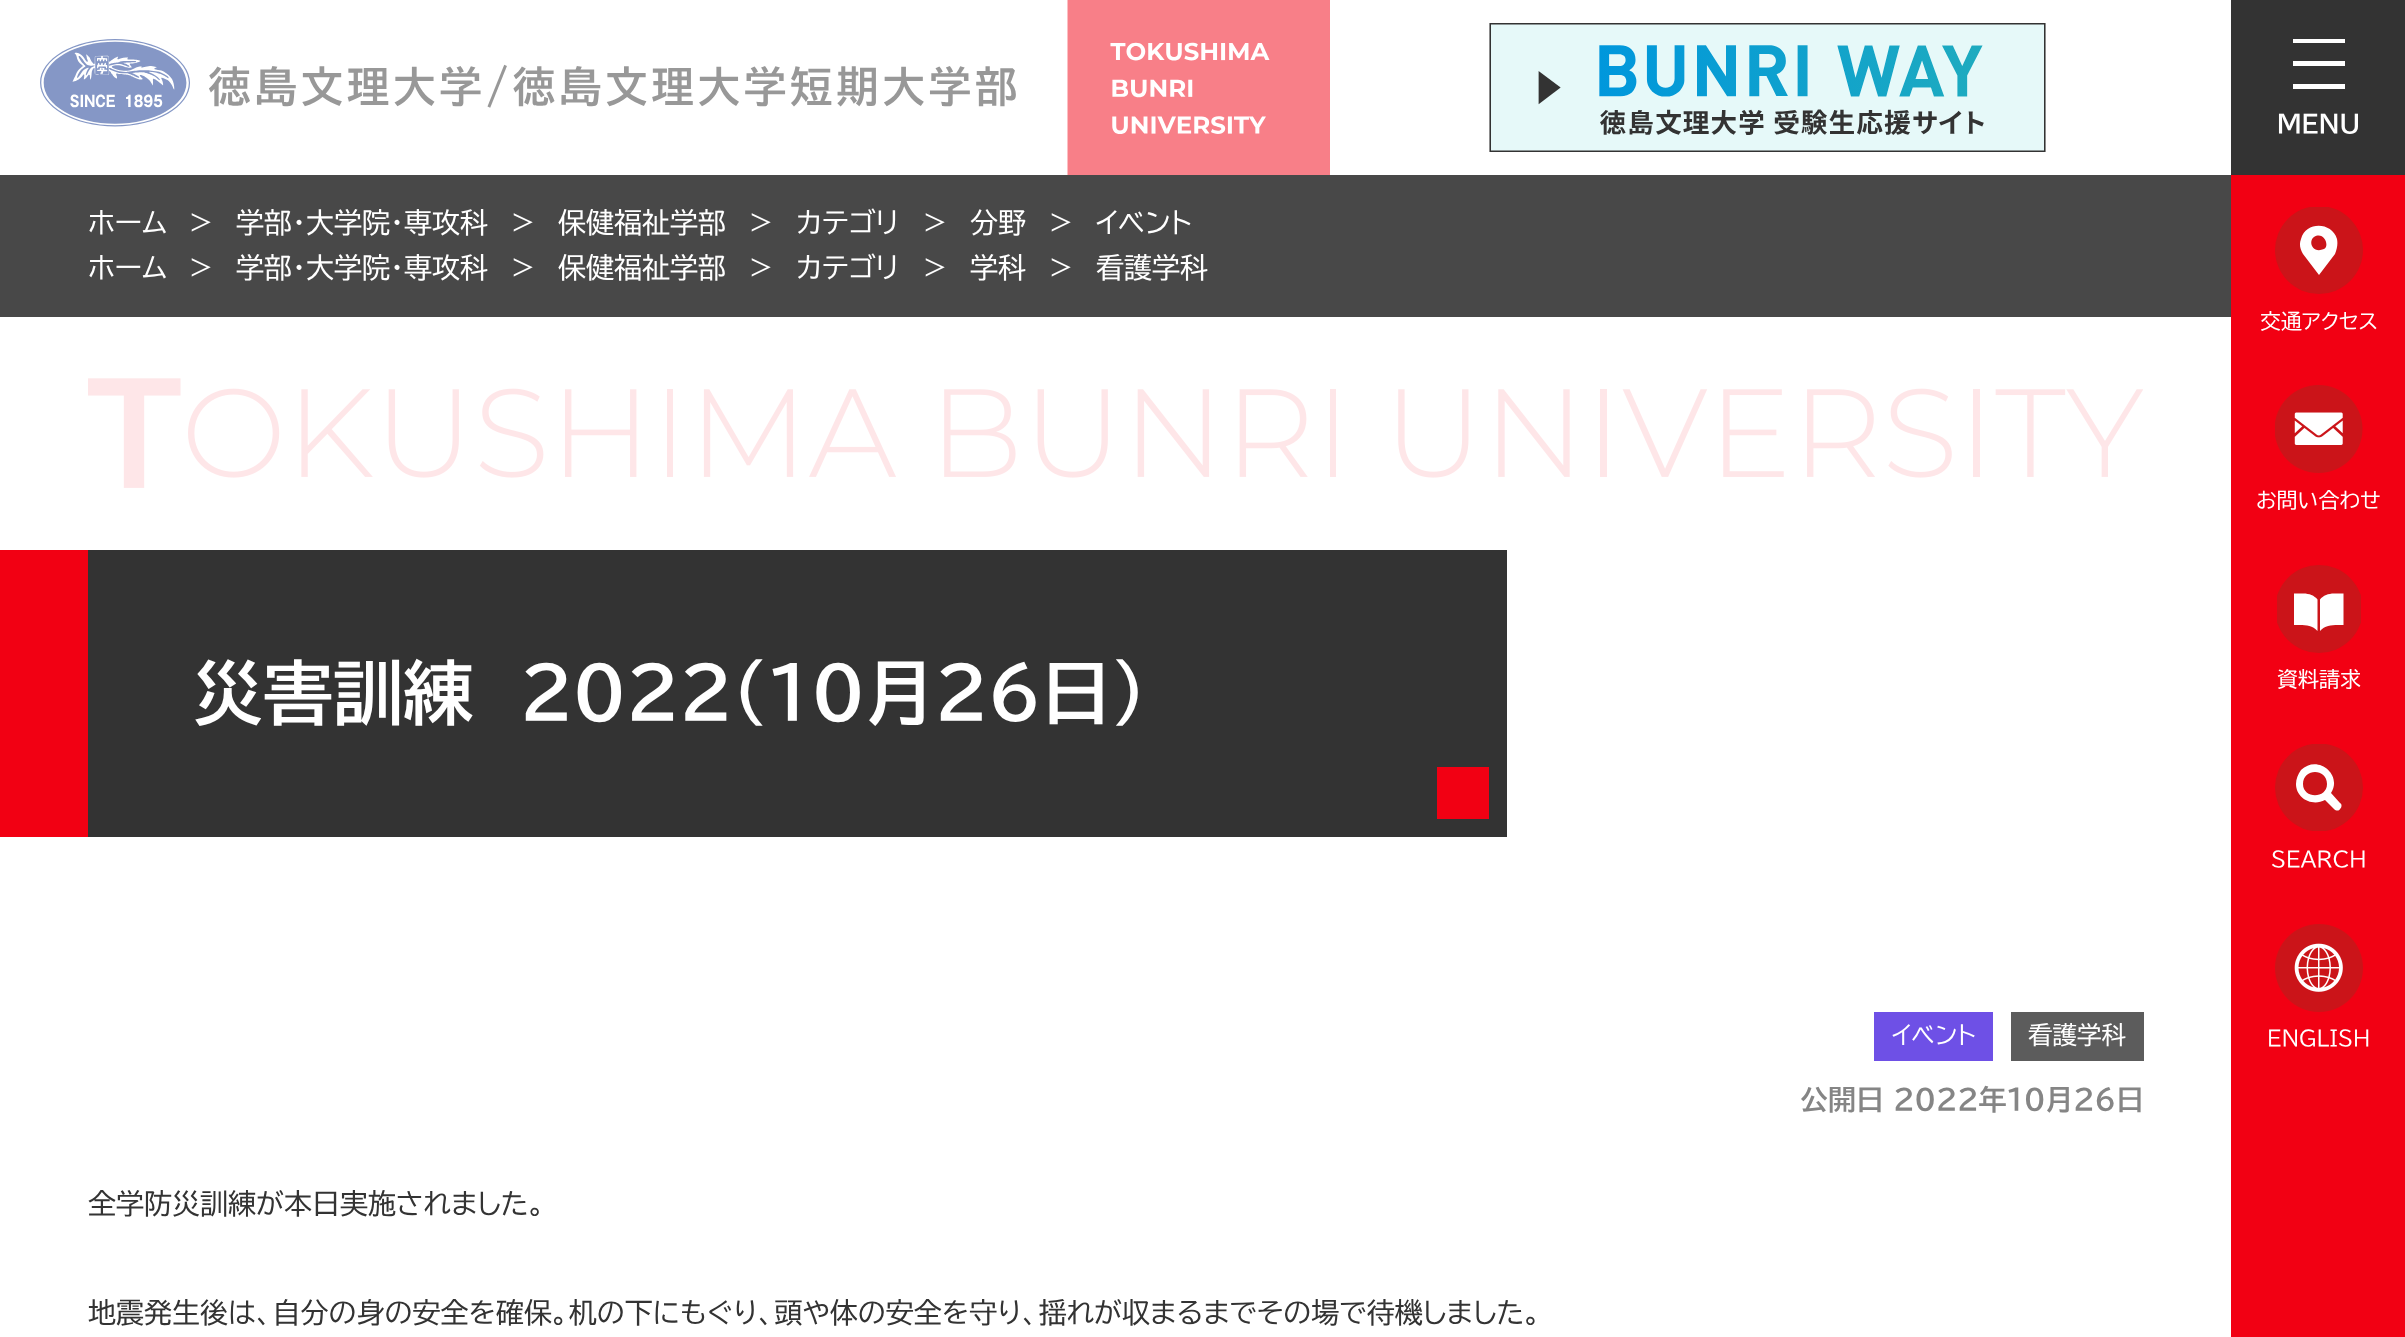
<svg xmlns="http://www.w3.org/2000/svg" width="2405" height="1337">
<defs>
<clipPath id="clip1"><rect x="2293" y="39" width="52" height="52"/></clipPath>
<clipPath id="clip2"><rect x="2275" y="207" width="88" height="87"/></clipPath>
<clipPath id="clip3"><rect x="2277" y="565" width="84" height="88"/></clipPath>
<clipPath id="clip4"><rect x="2275" y="744" width="88" height="87"/></clipPath>
</defs>
<rect width="100%" height="100%" fill="#fff"/>
<image x="40" y="0" width="1290" height="175" href="media/1.png"/>
<image x="1489" y="23" width="557" height="129" href="media/2.png"/>
<rect x="2231" width="174" height="175" fill="#333"/>
<g clip-path="url(#clip1)">
<path d="M2357 89h-77v-5h77zm0-23h-77v-5h77zm0-23h-77v-5h77z" fill="#fff"/>
</g>
<text x="2277" y="133" style="font-family:BIZ UDPGothic;font-size:24.5px;font-weight:bold;fill:#fff">MENU</text>
<rect y="175" width="2231" height="142" fill="#484848"/>
<text x="88" y="233" style="font-family:BIZ UDPGothic;font-size:28px;fill:#fff">ホーム</text>
<text x="187" y="233" style="font-family:BIZ UDPGothic;font-size:28px;fill:#fff">＞</text>
<text x="236" y="233" style="font-family:BIZ UDPGothic;font-size:28px;fill:#fff">学部・大学院・専攻科</text>
<text x="509" y="233" style="font-family:BIZ UDPGothic;font-size:28px;fill:#fff">＞</text>
<text x="558" y="233" style="font-family:BIZ UDPGothic;font-size:28px;fill:#fff">保健福祉学部</text>
<text x="747" y="233" style="font-family:BIZ UDPGothic;font-size:28px;fill:#fff">＞</text>
<text x="796" y="233" style="font-family:BIZ UDPGothic;font-size:28px;fill:#fff">カテゴリ</text>
<text x="921" y="233" style="font-family:BIZ UDPGothic;font-size:28px;fill:#fff">＞</text>
<text x="970" y="233" style="font-family:BIZ UDPGothic;font-size:28px;fill:#fff">分野</text>
<text x="1047" y="233" style="font-family:BIZ UDPGothic;font-size:28px;fill:#fff">＞</text>
<text x="1096" y="233" style="font-family:BIZ UDPGothic;font-size:28px;fill:#fff">イベント</text>
<text x="88" y="278" style="font-family:BIZ UDPGothic;font-size:28px;fill:#fff">ホーム</text>
<text x="187" y="278" style="font-family:BIZ UDPGothic;font-size:28px;fill:#fff">＞</text>
<text x="236" y="278" style="font-family:BIZ UDPGothic;font-size:28px;fill:#fff">学部・大学院・専攻科</text>
<text x="509" y="278" style="font-family:BIZ UDPGothic;font-size:28px;fill:#fff">＞</text>
<text x="558" y="278" style="font-family:BIZ UDPGothic;font-size:28px;fill:#fff">保健福祉学部</text>
<text x="747" y="278" style="font-family:BIZ UDPGothic;font-size:28px;fill:#fff">＞</text>
<text x="796" y="278" style="font-family:BIZ UDPGothic;font-size:28px;fill:#fff">カテゴリ</text>
<text x="921" y="278" style="font-family:BIZ UDPGothic;font-size:28px;fill:#fff">＞</text>
<text x="970" y="278" style="font-family:BIZ UDPGothic;font-size:28px;fill:#fff">学科</text>
<text x="1047" y="278" style="font-family:BIZ UDPGothic;font-size:28px;fill:#fff">＞</text>
<text x="1096" y="278" style="font-family:BIZ UDPGothic;font-size:28px;fill:#fff">看護学科</text>
<image x="88" y="378" width="2055" height="110" href="media/3.png"/>
<rect x="88" y="550" width="1419" height="287" fill="#333"/>
<rect y="550" width="88" height="287" fill="#f20013"/>
<text x="193" y="719" style="font-family:BIZ UDPGothic;font-size:70px;font-weight:bold;fill:#fff">災害訓練　2022（10月26日）</text>
<rect x="1437" y="767" width="52" height="52" fill="#f20013"/>
<rect x="2231" y="175" width="174" height="1162" fill="#f20013"/>
<g clip-path="url(#clip2)">
<circle cx="2319" cy="250" r="44" fill="#cb1419"/>
</g>
<path d="M2335 254c2-5 3-10 2-15c-5-17-31-18-36 0c-2 5-1 10 2 15l16 21zm-21-17c10-6 16 9 10 12c-12 5-16-8-10-12z" fill="#fff"/>
<text x="2260" y="329" style="font-family:BIZ UDPGothic;font-size:21px;fill:#fff">交通アクセス</text>
<image x="2275" y="385" width="88" height="88" href="media/4.png"/>
<text x="2256" y="508" style="font-family:BIZ UDPGothic;font-size:21px;fill:#fff">お問い合わせ</text>
<g clip-path="url(#clip3)">
<circle cx="2319" cy="609" r="44" fill="#cb1419"/>
</g>
<path d="M2334 593.5c-5.5 0-11 2-14 6v31.5c6-7 15-6 23.5-6v-31.5zm-30.5 0h-9.5v31.5c8.5 0 17.5-1 23.5 6v-31.5c-3-4-8.5-6-14-6z" fill="#fff"/>
<text x="2277" y="687" style="font-family:BIZ UDPGothic;font-size:21px;fill:#fff">資料請求</text>
<g clip-path="url(#clip4)">
<circle cx="2319" cy="787.5" r="44" fill="#cb1419"/>
</g>
<path d="M2296 784c0 14 16 23 29 16l9 9c2 2 5 2 6 0c2-2 2-5 0-6l-9-10c12-19-14-39-30-23c-3 4-5 9-5 14zm7 0c0-16 24-16 24 0c0 15-24 15-24 0z" fill="#fff"/>
<text x="2271" y="867" style="font-family:BIZ UDPGothic;font-size:21px;fill:#fff">SEARCH</text>
<image x="2275" y="924" width="88" height="88" href="media/5.png"/>
<text x="2267" y="1046" style="font-family:BIZ UDPGothic;font-size:21px;fill:#fff">ENGLISH</text>
<rect x="1874" y="1012" width="119" height="49" fill="#6e50e6"/>
<text x="1892" y="1044" style="font-family:BIZ UDPGothic;font-size:24.5px;fill:#fff">イベント</text>
<rect x="2011" y="1012" width="133" height="49" fill="#5c5c5c"/>
<text x="2028" y="1044" style="font-family:BIZ UDPGothic;font-size:24.5px;fill:#fff">看護学科</text>
<text x="1800" y="1110" style="font-family:BIZ UDPGothic;font-size:28px;font-weight:bold;fill:#858585">公開日 2022年10月26日</text>
<text x="88" y="1214" style="font-family:BIZ UDPGothic;font-size:28px;fill:#333">全学防災訓練が本日実施されました。</text>
<text x="88" y="1323" style="font-family:BIZ UDPGothic;font-size:28px;fill:#333">地震発生後は、自分の身の安全を確保。机の下にもぐり、頭や体の安全を守り、揺れが収まるまでその場で待機しました。</text>
</svg>
